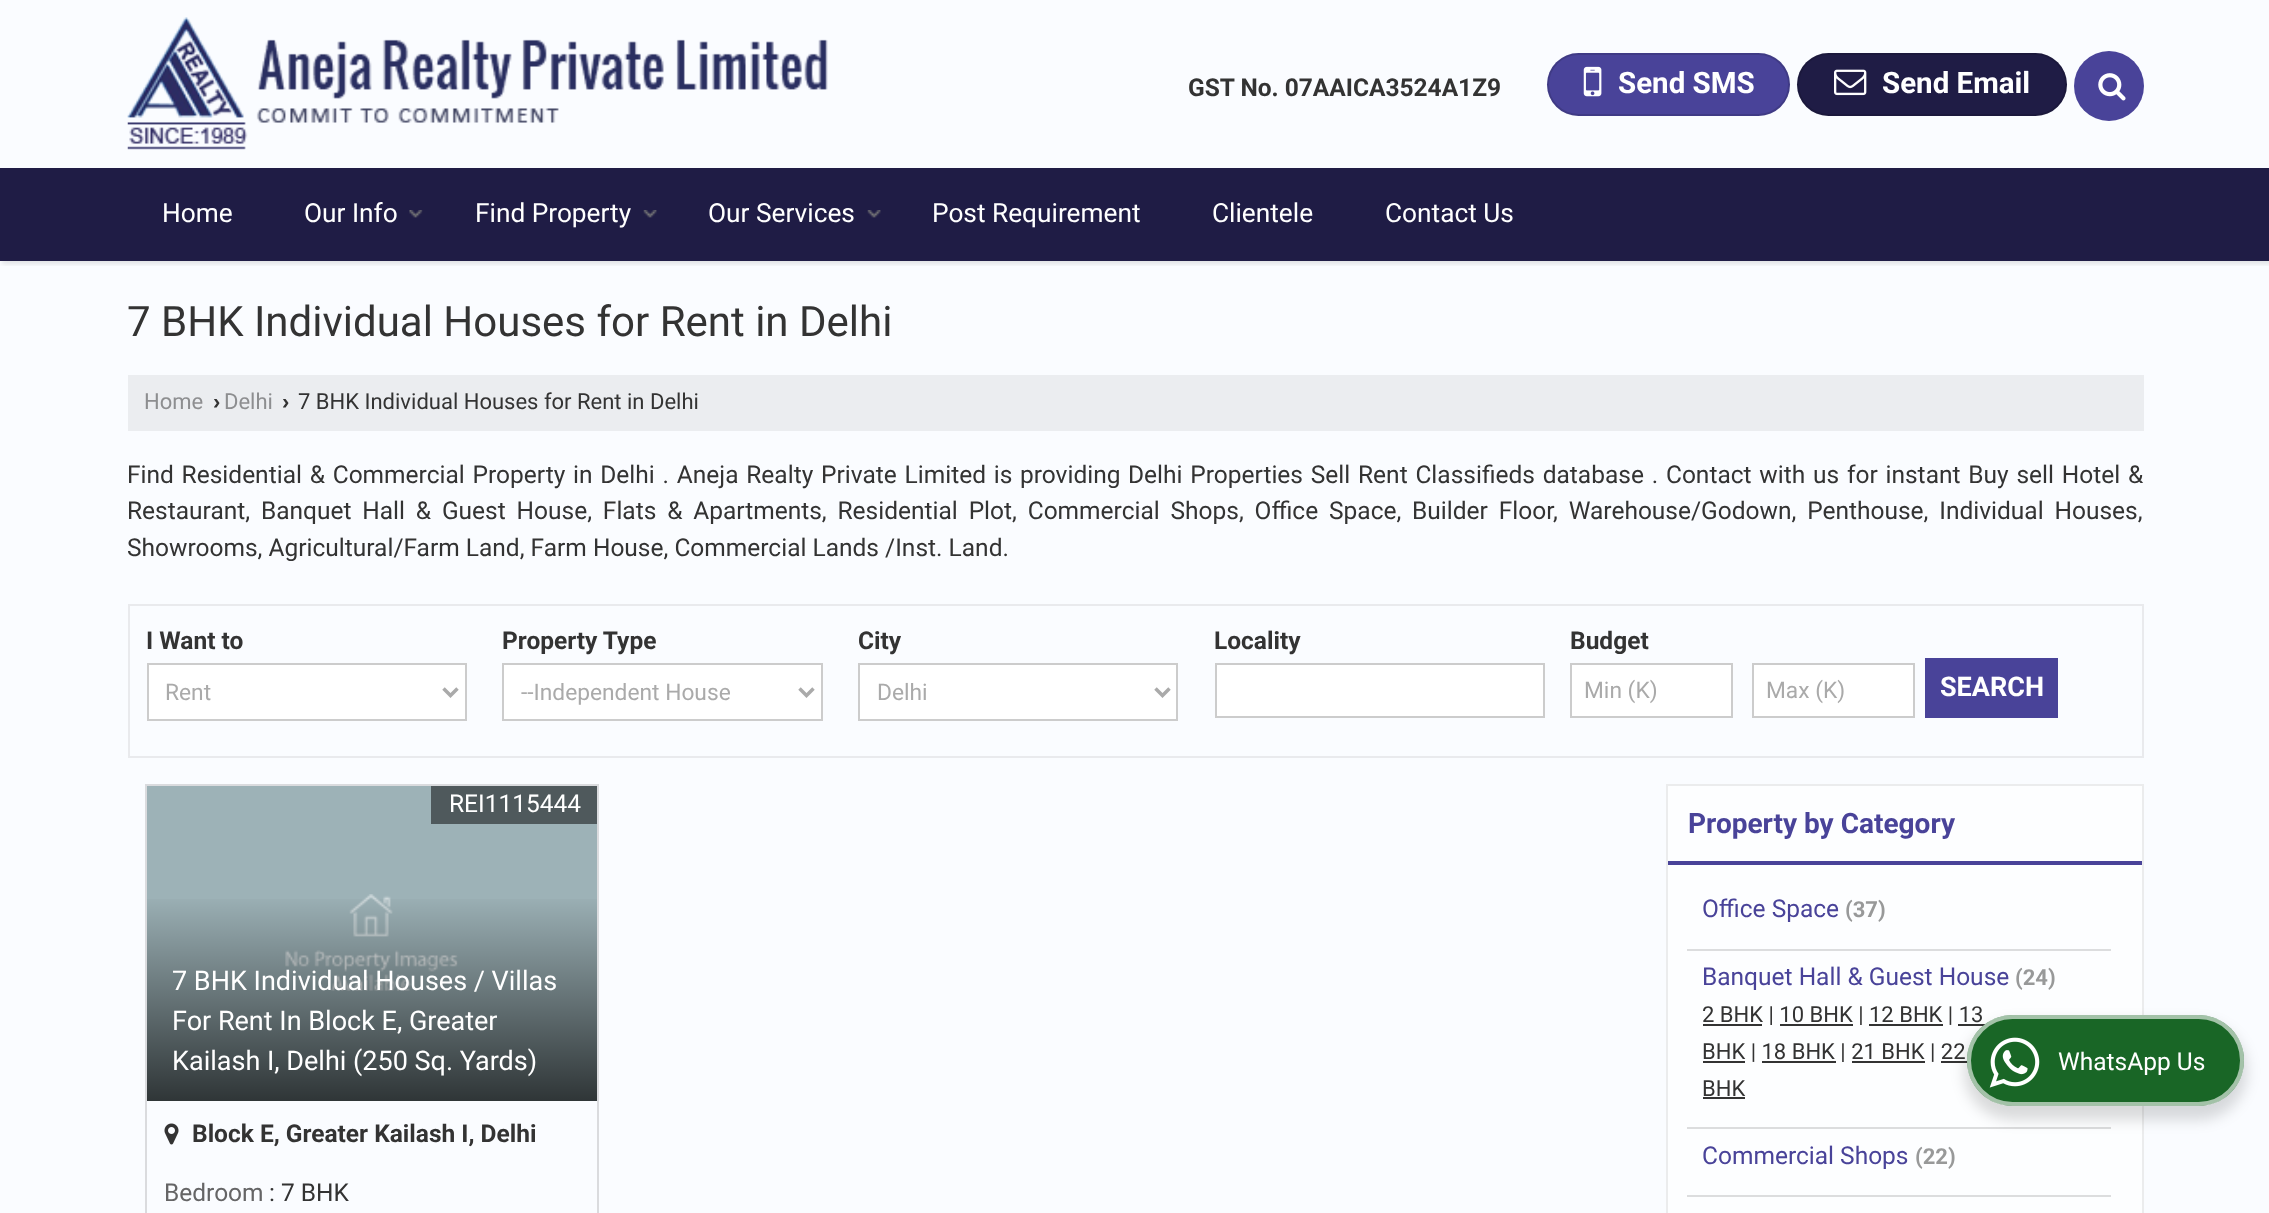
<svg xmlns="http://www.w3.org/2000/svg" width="2269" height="1213">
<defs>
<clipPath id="clip1"><rect x="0" y="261" width="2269" height="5"/></clipPath>
<linearGradient id="g1" gradientUnits="userSpaceOnUse" x1="372" y1="893" x2="372" y2="1101"><stop offset="0" stop-color="#000" stop-opacity="0"/><stop offset="1" stop-color="#000" stop-opacity="0.7"/></linearGradient>
</defs>
<rect width="100%" height="100%" fill="#fafcff"/>
<g clip-path="url(#clip1)">
<rect x="2" y="4" width="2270" height="260" fill="#0000001a" filter="blur(2.5px)"/>
</g>
<image x="127" y="17" width="701" height="133" href="media/1.png"/>
<text x="1188" y="96" style="font-family:Roboto;font-size:24.5px;font-weight:bold;fill:#333">GST No. 07AAICA3524A1Z9</text>
<rect x="1547" y="53" width="243" height="63" rx="31.5" fill="#494399"/>
<rect x="1548" y="54" width="241" height="61" rx="30.5" fill="none" stroke="#00000021" stroke-width="2"/>
<image x="1583" y="66" width="19" height="31" href="media/2.png"/>
<text x="1618" y="93" style="font-family:Roboto;font-size:29.5px;font-weight:bold;fill:#fff">Send SMS</text>
<rect x="1797" y="53" width="270" height="63" rx="31.5" fill="#1f1c45"/>
<rect x="1798" y="54" width="268" height="61" rx="30.5" fill="none" stroke="#00000021" stroke-width="2"/>
<image x="1834" y="69" width="33" height="27" href="media/3.png"/>
<text x="1882" y="93" style="font-family:Roboto;font-size:29.5px;font-weight:bold;fill:#fff">Send Email</text>
<circle cx="2109" cy="86" r="35" fill="#494399"/>
<image x="2098" y="73" width="28" height="28" href="media/4.png"/>
<rect y="168" width="2269" height="93" fill="#1f1c45"/>
<text x="162" y="222" style="font-family:Roboto;font-size:26.25px;fill:#fff">Home</text>
<text x="304" y="222" style="font-family:Roboto;font-size:26.25px;fill:#fff">Our Info</text>
<image x="409" y="210" width="14" height="8" href="media/5.png"/>
<text x="475" y="222" style="font-family:Roboto;font-size:26.25px;fill:#fff">Find Property</text>
<image x="643" y="210" width="14" height="8" href="media/6.png"/>
<text x="708" y="222" style="font-family:Roboto;font-size:26.25px;fill:#fff">Our Services</text>
<image x="867" y="210" width="14" height="8" href="media/6.png"/>
<text x="932" y="222" style="font-family:Roboto;font-size:26.25px;fill:#fff">Post Requirement</text>
<text x="1212" y="222" style="font-family:Roboto;font-size:26.25px;fill:#fff">Clientele</text>
<text x="1385" y="222" style="font-family:Roboto;font-size:26.25px;fill:#fff">Contact Us</text>
<text x="127" y="336" style="font-family:Roboto;font-size:42px;fill:#333">7 BHK Individual Houses for Rent in Delhi</text>
<rect x="128" y="375" width="2016" height="56" fill="#ebedf0"/>
<text x="144" y="409" style="font-family:Roboto;font-size:22px;fill:#8d8e90">Home</text>
<text x="213" y="409" style="font-family:Liberation Sans;font-size:22px;font-weight:bold;fill:#333">›</text>
<text x="224" y="409" style="font-family:Roboto;font-size:22px;fill:#8d8e90">Delhi</text>
<text x="282" y="409" style="font-family:Liberation Sans;font-size:22px;font-weight:bold;fill:#333">›</text>
<text x="298" y="409" style="font-family:Roboto;font-size:22px;fill:#333">7 BHK Individual Houses for Rent in Delhi</text>
<text x="127" y="483" word-spacing="1.7" style="font-family:Roboto;font-size:24.5px;fill:#333">Find Residential &amp; Commercial Property in Delhi . Aneja Realty Private Limited is</text>
<text x="1020" y="483" style="font-family:Roboto;font-size:24.5px;fill:#333">providing</text>
<text x="1128" y="483" word-spacing="1.7" style="font-family:Roboto;font-size:24.5px;fill:#333">Delhi Properties Sell Rent Classifieds database . Contact with us for instant Buy sell Hotel &amp;</text>
<text x="127" y="519" word-spacing="4.75" style="font-family:Roboto;font-size:24.5px;fill:#333">Restaurant, Banquet Hall &amp; Guest House, Flats &amp; Apartments, Residential Plot, Commercial Shops, Office Space, Builder Floor, Warehouse/Godown, Penthouse, Individual Houses,</text>
<text x="127" y="556" style="font-family:Roboto;font-size:24.5px;fill:#333">Showrooms, Agricultural/Farm Land, Farm House, Commercial Lands /Inst. Land.</text>
<rect x="129" y="605" width="2014" height="152" fill="none" stroke="#e9eaed" stroke-width="2"/>
<text x="146" y="649" style="font-family:Roboto;font-size:24.5px;font-weight:bold;fill:#333">I Want to</text>
<rect x="148" y="664" width="318" height="56" fill="#fff" stroke="#ccc" stroke-width="2"/>
<path d="M443.5 688.5l7 7l7-7" fill="none" stroke="#aaa" stroke-width="3.5"/>
<text x="165" y="700" style="font-family:Roboto;font-size:22.75px;fill:#aaa">Rent</text>
<text x="502" y="649" style="font-family:Roboto;font-size:24.5px;font-weight:bold;fill:#333">Property Type</text>
<rect x="503" y="664" width="319" height="56" fill="#fff" stroke="#ccc" stroke-width="2"/>
<path d="M799.5 688.5l7 7l7-7" fill="none" stroke="#aaa" stroke-width="3.5"/>
<text x="521" y="700" style="font-family:Roboto;font-size:22.75px;fill:#aaa">--Independent House</text>
<text x="858" y="649" style="font-family:Roboto;font-size:24.5px;font-weight:bold;fill:#333">City</text>
<rect x="859" y="664" width="318" height="56" fill="#fff" stroke="#ccc" stroke-width="2"/>
<path d="M1155.5 688.5l7 7l7-7" fill="none" stroke="#aaa" stroke-width="3.5"/>
<text x="877" y="700" style="font-family:Roboto;font-size:22.75px;fill:#aaa">Delhi</text>
<text x="1214" y="649" style="font-family:Roboto;font-size:24.5px;font-weight:bold;fill:#333">Locality</text>
<rect x="1216" y="664" width="328" height="53" fill="#fff" stroke="#ccc" stroke-width="2"/>
<text x="1570" y="649" style="font-family:Roboto;font-size:24.5px;font-weight:bold;fill:#333">Budget</text>
<rect x="1571" y="664" width="161" height="53" fill="#fff" stroke="#ccc" stroke-width="2"/>
<text x="1584" y="698" style="font-family:Roboto;font-size:22.75px;fill:#aaa">Min (K)</text>
<rect x="1753" y="664" width="161" height="53" fill="#fff" stroke="#ccc" stroke-width="2"/>
<text x="1766" y="698" style="font-family:Roboto;font-size:22.75px;fill:#aaa">Max (K)</text>
<rect x="1925" y="658" width="133" height="60" fill="#494399"/>
<text x="1940" y="696" style="font-family:Roboto;font-size:27px;font-weight:bold;fill:#fff">SEARCH</text>
<rect x="146" y="785" width="452" height="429" fill="none" stroke="#dadbde" stroke-width="2"/>
<rect x="147" y="786" width="450" height="315" fill="#9db2b7"/>
<image x="285" y="894" width="173" height="97" href="media/7.png"/>
<rect x="431" y="786" width="166" height="38" fill="#4f595c"/>
<text x="449" y="812" style="font-family:Roboto;font-size:24.5px;fill:#fff">REI1115444</text>
<rect x="147" y="899" width="450" height="202" fill="url(#g1)"/>
<text x="172" y="990" style="font-family:Roboto;font-size:27px;fill:#fff">7 BHK Individual Houses / Villas</text>
<text x="172" y="1030" style="font-family:Roboto;font-size:27px;fill:#fff">For Rent In Block E, Greater</text>
<text x="172" y="1070" style="font-family:Roboto;font-size:27px;fill:#fff">Kailash I, Delhi (250 Sq. Yards)</text>
<image x="164" y="1123" width="15" height="22" href="media/8.png"/>
<text x="192" y="1142" style="font-family:Roboto;font-size:24.5px;font-weight:bold;fill:#333">Block E, Greater Kailash I, Delhi</text>
<text x="164" y="1201" style="font-family:Roboto;font-size:24.5px;fill:#656566">Bedroom</text>
<text x="269" y="1201" style="font-family:Roboto;font-size:24.5px;fill:#333">: 7 BHK</text>
<rect x="1667" y="785" width="476" height="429" fill="#fdfeff" stroke="#ebeced" stroke-width="2"/>
<rect x="1668" y="861" width="474" height="4" fill="#494399"/>
<text x="1688" y="833" style="font-family:Roboto;font-size:28px;font-weight:bold;fill:#494399">Property by Category</text>
<text x="1702" y="917" style="font-family:Roboto;font-size:24.5px;fill:#494399">Office Space</text>
<text x="1845" y="917" style="font-family:Roboto;font-size:22px;font-weight:bold;fill:#989999">(37)</text>
<rect x="1687" y="949" width="424" height="2" fill="#dcddde"/>
<text x="1702" y="985" style="font-family:Roboto;font-size:24.5px;fill:#494399">Banquet Hall &amp; Guest House</text>
<text x="2015" y="985" style="font-family:Roboto;font-size:22px;font-weight:bold;fill:#989999">(24)</text>
<rect x="1703" y="1024" width="59" height="2" fill="#333"/>
<text x="1702" y="1022" style="font-family:Roboto;font-size:22px;fill:#333">2 BHK | 10 BHK | 12 BHK | 13</text>
<rect x="1780" y="1024" width="73" height="2" fill="#333"/>
<rect x="1869" y="1024" width="74" height="2" fill="#333"/>
<rect x="1958" y="1024" width="28" height="2" fill="#333"/>
<rect x="1703" y="1061" width="42" height="2" fill="#333"/>
<text x="1702" y="1059" style="font-family:Roboto;font-size:22px;fill:#333">BHK | 18 BHK | 21 BHK | 22</text>
<rect x="1762" y="1061" width="74" height="2" fill="#333"/>
<rect x="1852" y="1061" width="73" height="2" fill="#333"/>
<rect x="1941" y="1061" width="27" height="2" fill="#333"/>
<text x="1702" y="1096" style="font-family:Roboto;font-size:22px;fill:#333">BHK</text>
<rect x="1703" y="1097" width="42" height="2" fill="#333"/>
<rect x="1687" y="1127" width="424" height="2" fill="#dcddde"/>
<text x="1702" y="1164" style="font-family:Roboto;font-size:24.5px;fill:#494399">Commercial Shops</text>
<text x="1915" y="1164" style="font-family:Roboto;font-size:22px;font-weight:bold;fill:#989999">(22)</text>
<rect x="1687" y="1195" width="424" height="2" fill="#dcddde"/>
<rect x="1964" y="1022" width="283" height="98" rx="49" fill="#00000024" filter="blur(7px)"/>
<rect x="1967" y="1015" width="277" height="91" rx="45.5" fill="#196626"/>
<rect x="1969" y="1017" width="273" height="87" rx="43.5" fill="none" stroke="#ffffff99" stroke-width="4"/>
<image x="1989" y="1037" width="51" height="51" href="media/9.png"/>
<text x="2058" y="1070" style="font-family:Roboto;font-size:24.5px;fill:#fff">WhatsApp Us</text>
</svg>
